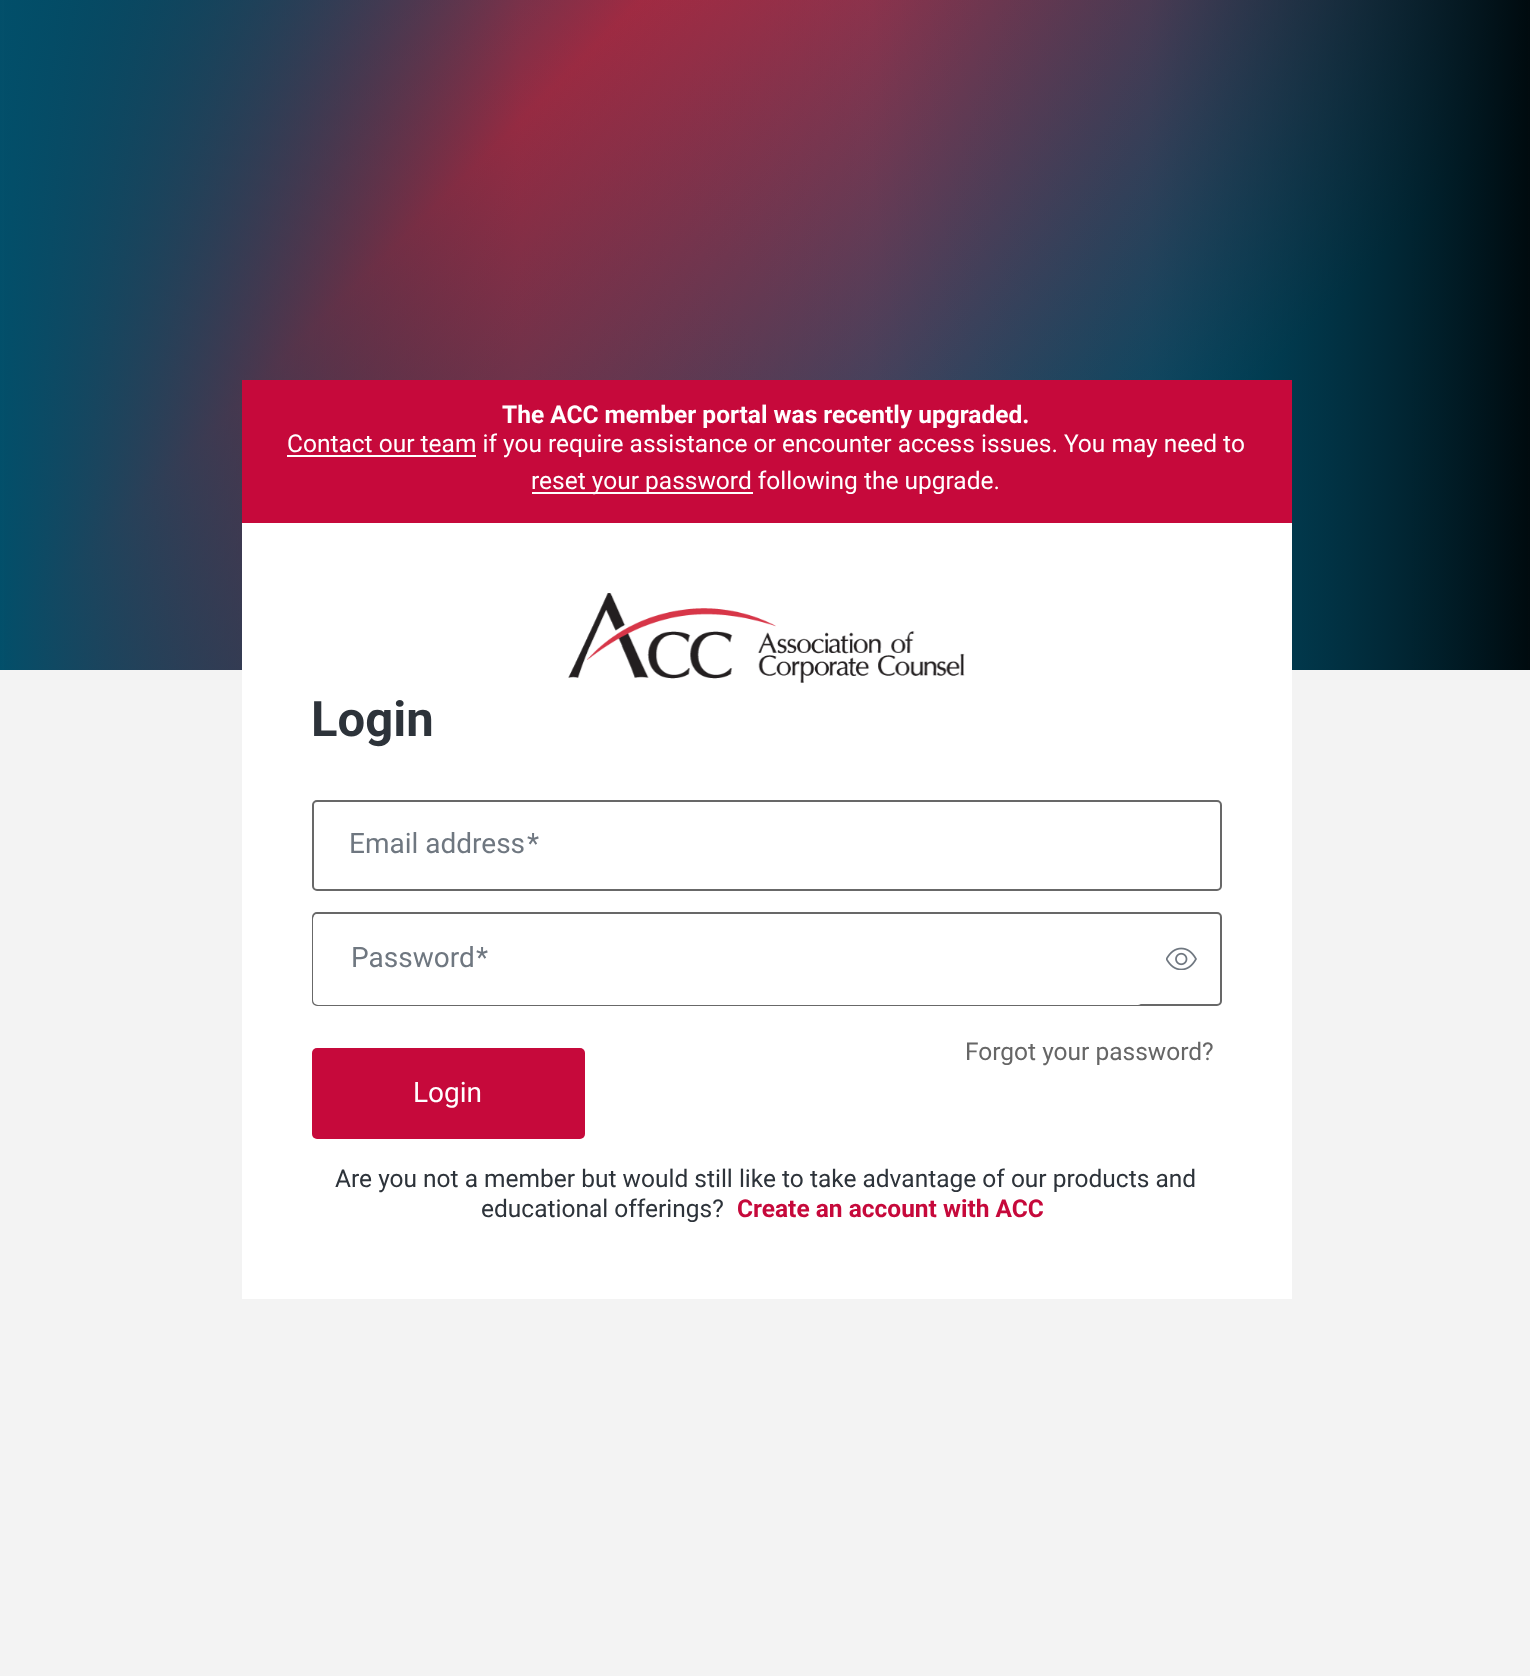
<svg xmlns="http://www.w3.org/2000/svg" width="1530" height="1676">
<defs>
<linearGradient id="g1" gradientUnits="userSpaceOnUse" x1="-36" y1="36" x2="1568" y2="1640"><stop offset="0" stop-color="#025573"/><stop offset="0.11" stop-color="#673e59"/><stop offset="0.2" stop-color="#ba2a43"/><stop offset="0.51" stop-color="#02506c"/><stop offset="0.9" stop-color="#02506c"/><stop offset="1" stop-color="#023c51"/></linearGradient>
<linearGradient id="g2" gradientUnits="userSpaceOnUse" x1="0" y1="838" x2="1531" y2="838"><stop offset="0" stop-color="#024f6a"/><stop offset="0.34" stop-color="#012e3e" stop-opacity="0.2"/><stop offset="0.57" stop-color="#012e3e" stop-opacity="0.03"/><stop offset="0.75" stop-color="#012e3e" stop-opacity="0.2"/><stop offset="1" stop-color="#000a0e"/></linearGradient>
</defs>
<rect width="100%" height="100%" fill="#fff"/>
<rect x="4" width="1524" height="670" fill="url(#g1)"/>
<rect width="1530" height="670" fill="url(#g2)"/>
<rect x="242" y="380" width="1050" height="143" fill="#c6093b"/>
<text x="502" y="423" style="font-family:Roboto;font-size:24.5px;font-weight:bold;fill:#fff">The ACC member portal was recently upgraded.</text>
<rect x="287" y="455" width="189" height="2" fill="#fff"/>
<text x="287" y="452" style="font-family:Roboto;font-size:24.5px;fill:#fff">Contact our team if you require assistance or encounter access issues. You may need to</text>
<rect x="532" y="492" width="221" height="2" fill="#fff"/>
<text x="531" y="489" style="font-family:Roboto;font-size:24.5px;fill:#fff">reset your password following the upgrade.</text>
<rect y="670" width="1530" height="1006" fill="#f3f3f3"/>
<rect x="242" y="523" width="1050" height="776" fill="#fff"/>
<image x="568" y="593" width="397" height="90" href="media/1.png"/>
<text x="311" y="736" style="font-family:Roboto;font-size:49px;font-weight:bold;fill:#2d333a">Login</text>
<rect x="313" y="801" width="908" height="89" rx="4" fill="none" stroke="#686868" stroke-width="2"/>
<text x="349" y="853" style="font-family:Roboto;font-size:28px;fill:#6f7780">Email address</text>
<text x="527" y="853" style="font-family:Roboto;font-size:28px;fill:#6f7780">*</text>
<rect x="313" y="913" width="908" height="92" rx="4" fill="none" stroke="#686868" stroke-width="2"/>
<rect x="313" y="914" width="830" height="91" rx="5" fill="#fff"/>
<text x="351" y="967" style="font-family:Roboto;font-size:28px;fill:#6f7780">Password</text>
<text x="476" y="967" style="font-family:Roboto;font-size:28px;fill:#6f7780">*</text>
<image x="1166" y="947" width="31" height="23" href="media/2.png"/>
<text x="965" y="1060" style="font-family:Roboto;font-size:24.5px;fill:#666">Forgot your password?</text>
<rect x="312" y="1048" width="273" height="91" rx="5" fill="#c6093b"/>
<text x="413" y="1102" style="font-family:Roboto;font-size:28px;fill:#fff">Login</text>
<text x="335" y="1187" style="font-family:Roboto;font-size:24.5px;fill:#2d333a">Are you not a member but would still like to take advantage of our products and</text>
<text x="481" y="1217" style="font-family:Roboto;font-size:24.5px;fill:#2d333a">educational offerings?</text>
<text x="737" y="1217" style="font-family:Roboto;font-size:24.5px;font-weight:bold;fill:#c6093b">Create an account with ACC</text>
</svg>
